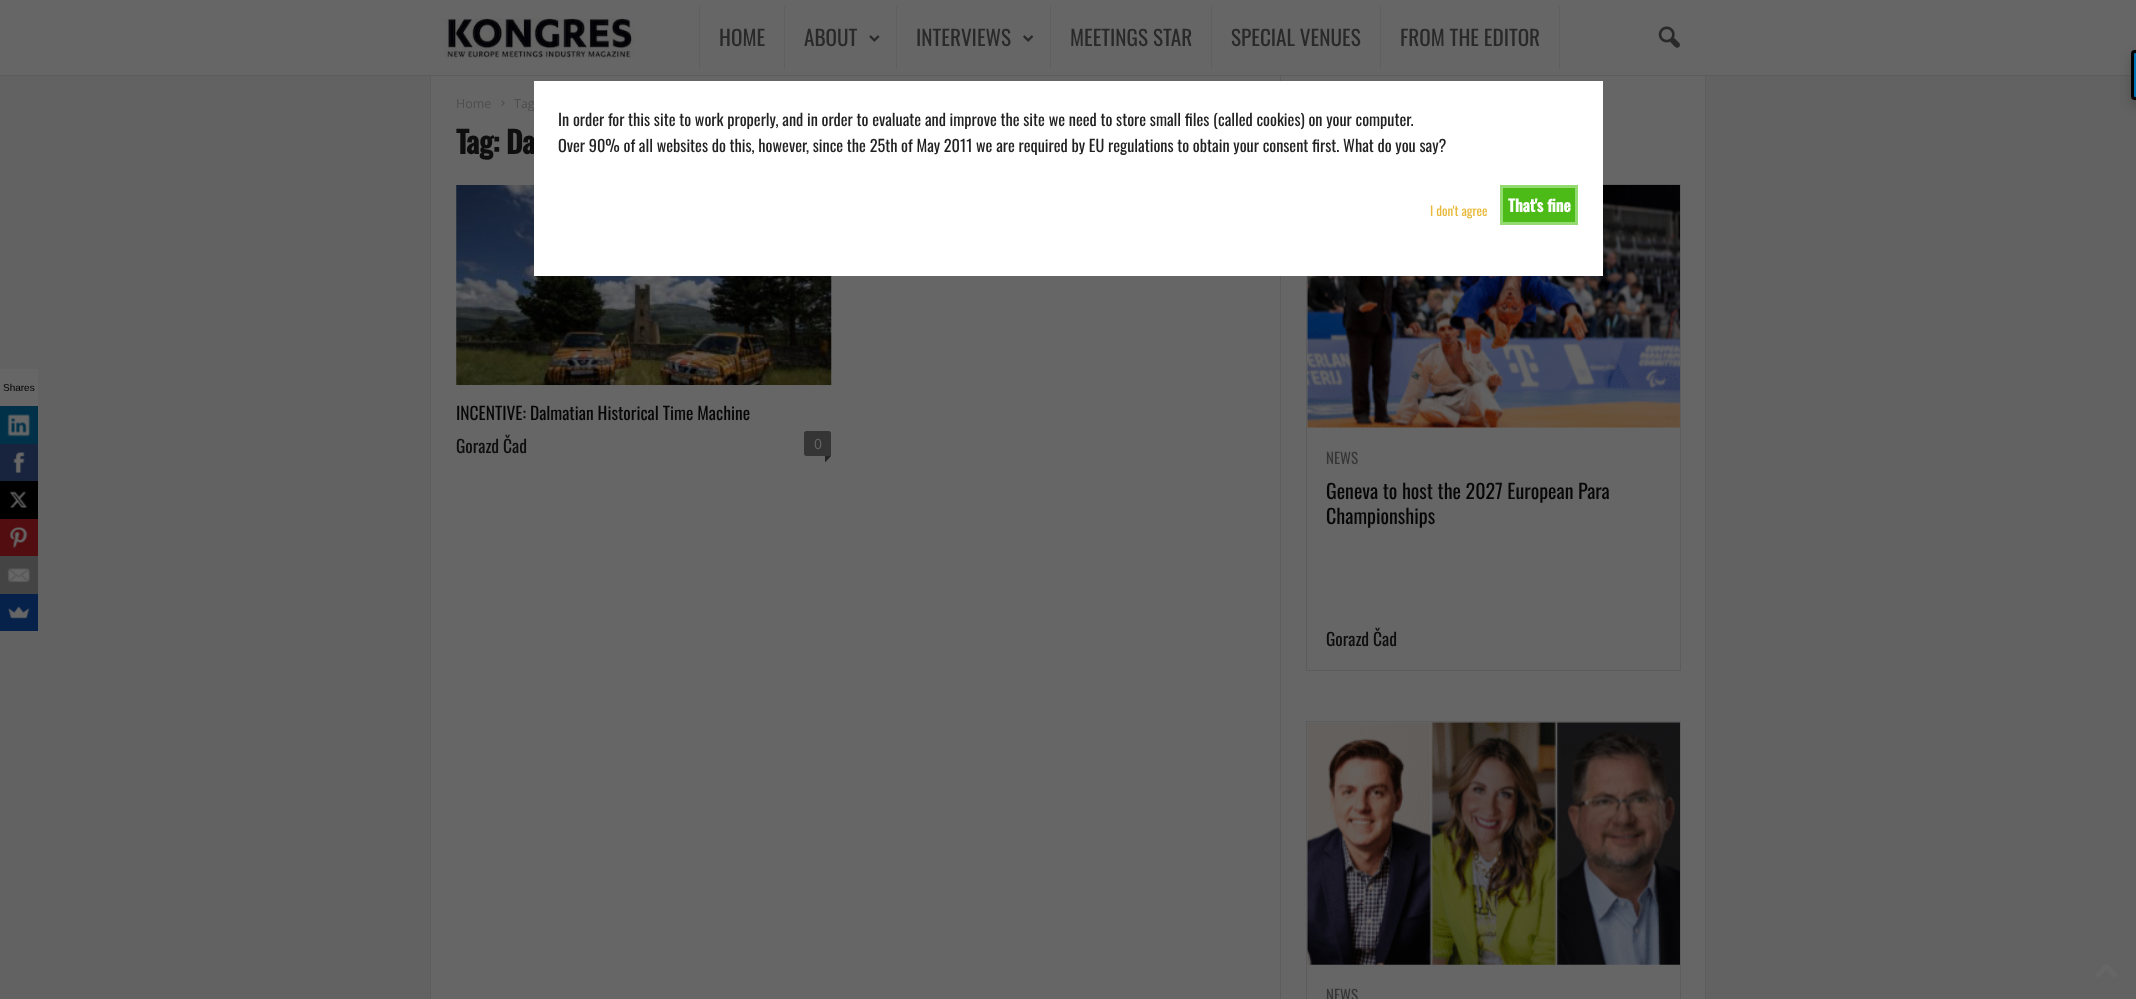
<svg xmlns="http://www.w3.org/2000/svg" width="2136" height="999">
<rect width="100%" height="100%" fill="#626262"/>
<rect width="2136" height="75" fill="#666"/>
<rect x="430" y="75" width="1" height="924" fill="#5c5c5c"/>
<rect x="431" y="76" width="1274" height="923" fill="#666"/>
<rect x="1280" y="75" width="1" height="924" fill="#5c5c5c"/>
<rect x="1705" y="75" width="1" height="924" fill="#5c5c5c"/>
<rect y="75" width="2136" height="1" fill="#5c5c5c"/>
<image x="443" y="18" width="193" height="40" href="media/1.png"/>
<rect x="784" y="6" width="1" height="63" fill="#5f5f5f"/>
<rect x="699" y="6" width="1" height="63" fill="#5f5f5f"/>
<text x="719" y="46" style="font-family:Oswald;font-size:21.25px;fill:#292929">HOME</text>
<rect x="896" y="6" width="1" height="63" fill="#5f5f5f"/>
<text x="804" y="46" style="font-family:Oswald;font-size:21.25px;fill:#292929">ABOUT</text>
<image x="869" y="35" width="11" height="7" href="media/2.png"/>
<rect x="1050" y="6" width="1" height="63" fill="#5f5f5f"/>
<text x="916" y="46" style="font-family:Oswald;font-size:21.25px;fill:#292929">INTERVIEWS</text>
<image x="1023" y="35" width="11" height="7" href="media/3.png"/>
<rect x="1211" y="6" width="1" height="63" fill="#5f5f5f"/>
<text x="1070" y="46" style="font-family:Oswald;font-size:21.25px;fill:#292929">MEETINGS STAR</text>
<rect x="1380" y="6" width="1" height="63" fill="#5f5f5f"/>
<text x="1231" y="46" style="font-family:Oswald;font-size:21.25px;fill:#292929">SPECIAL VENUES</text>
<rect x="1559" y="6" width="1" height="63" fill="#5f5f5f"/>
<text x="1400" y="46" style="font-family:Oswald;font-size:21.25px;fill:#292929">FROM THE EDITOR</text>
<image x="1658" y="26" width="22" height="22" href="media/4.png"/>
<text x="456" y="108" style="font-family:Open Sans;font-size:12.5px;fill:#4e4e4e">Home</text>
<image x="501" y="100" width="4" height="6" href="media/5.png"/>
<text x="514" y="108" style="font-family:Open Sans;font-size:12.5px;fill:#4e4e4e">Tag</text>
<text x="456" y="154" style="font-family:Oswald;font-size:30px;font-weight:bold;letter-spacing:-0.5px;fill:#0e0e0e">Tag: Da</text>
<image x="456" y="185" width="376" height="200" href="media/6.png"/>
<text x="456" y="420" style="font-family:Oswald;font-size:17.5px;fill:#070707">INCENTIVE: Dalmatian Historical Time Machine</text>
<text x="456" y="453" style="font-family:Oswald;font-size:17.5px;fill:#0e0e0e">Gorazd Čad</text>
<path d="M806.5 431h22c1.5 0 2.5 1 2.5 2.5v22.5h-24.5c-1.5 0-2.5-1-2.5-2.5v-20c0-1.5 1-2.5 2.5-2.5z" fill="#353535"/>
<text x="814" y="449" style="font-family:Open Sans;font-size:14px;fill:#666">0</text>
<path d="M825 456h6l-6 6.5z" fill="#242424"/>
<rect x="1306.5" y="184.5" width="374" height="486" fill="none" stroke="#5c5c5c"/>
<image x="1307" y="185" width="373" height="243" href="media/7.png"/>
<text x="1326" y="464" style="font-family:Oswald;font-size:15px;fill:#363636">NEWS</text>
<text x="1326" y="499" style="font-family:Oswald;font-size:20px;fill:#070707">Geneva to host the 2027 European Para</text>
<text x="1326" y="524" style="font-family:Oswald;font-size:20px;fill:#070707">Championships</text>
<text x="1326" y="646" style="font-family:Oswald;font-size:17.5px;fill:#0e0e0e">Gorazd Čad</text>
<rect x="1306.5" y="721.5" width="374" height="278" fill="none" stroke="#5c5c5c"/>
<image x="1307" y="722" width="373" height="243" href="media/8.png"/>
<text x="1326" y="1001" style="font-family:Oswald;font-size:15px;fill:#363636">NEWS</text>
<rect x="2131" y="55" width="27" height="50" rx="4" fill="#00000033" filter="blur(6px)"/>
<path d="M2135 51.5h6.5v47h-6.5c-1.5 0-2.5-1-2.5-2.5v-42c0-1.5 1-2.5 2.5-2.5z" fill="#0073b7" stroke="#000" stroke-width="3"/>
<rect x="534" y="81" width="1069" height="195" fill="#fff"/>
<text x="558" y="126" style="font-family:Oswald;font-size:16.25px;fill:#222">In order for this site to work properly, and in order to evaluate and improve the site we need to store small files (called cookies) on your computer.</text>
<text x="558" y="152" style="font-family:Oswald;font-size:16.25px;fill:#222">Over 90% of all websites do this, however, since the 25th of May 2011 we are required by EU regulations to obtain your consent first. What do you say?</text>
<text x="1430" y="216" style="font-family:Oswald;font-size:13px;fill:#e8b93a">I don't agree</text>
<rect x="1501.5" y="186.5" width="75" height="37" fill="#4cbb17" stroke="#93db70" stroke-width="3"/>
<text x="1508" y="212" style="font-family:Oswald;font-size:16.25px;font-weight:bold;fill:#fff">That's fine</text>
<rect y="369" width="38" height="37" fill="#666"/>
<text x="3" y="391" style="font-family:Liberation Sans;font-size:10px;fill:#000">Shares</text>
<rect y="406" width="38" height="38" fill="#003149"/>
<image x="7" y="414" width="24" height="23" href="media/9.png"/>
<rect y="444" width="38" height="37" fill="#18243d"/>
<image x="13" y="452" width="12" height="21" href="media/10.png"/>
<rect y="481" width="38" height="38" fill="#000"/>
<image x="9" y="491" width="19" height="17" href="media/11.png"/>
<rect y="519" width="38" height="37" fill="#510d10"/>
<image x="10" y="527" width="18" height="22" href="media/12.png"/>
<rect y="556" width="38" height="38" fill="#444"/>
<image x="7" y="568" width="23" height="15" href="media/13.png"/>
<rect y="594" width="38" height="37" fill="#06214a"/>
<image x="8" y="606" width="22" height="13" href="media/14.png"/>
<image x="2095" y="963" width="23" height="15" href="media/15.png"/>
</svg>
